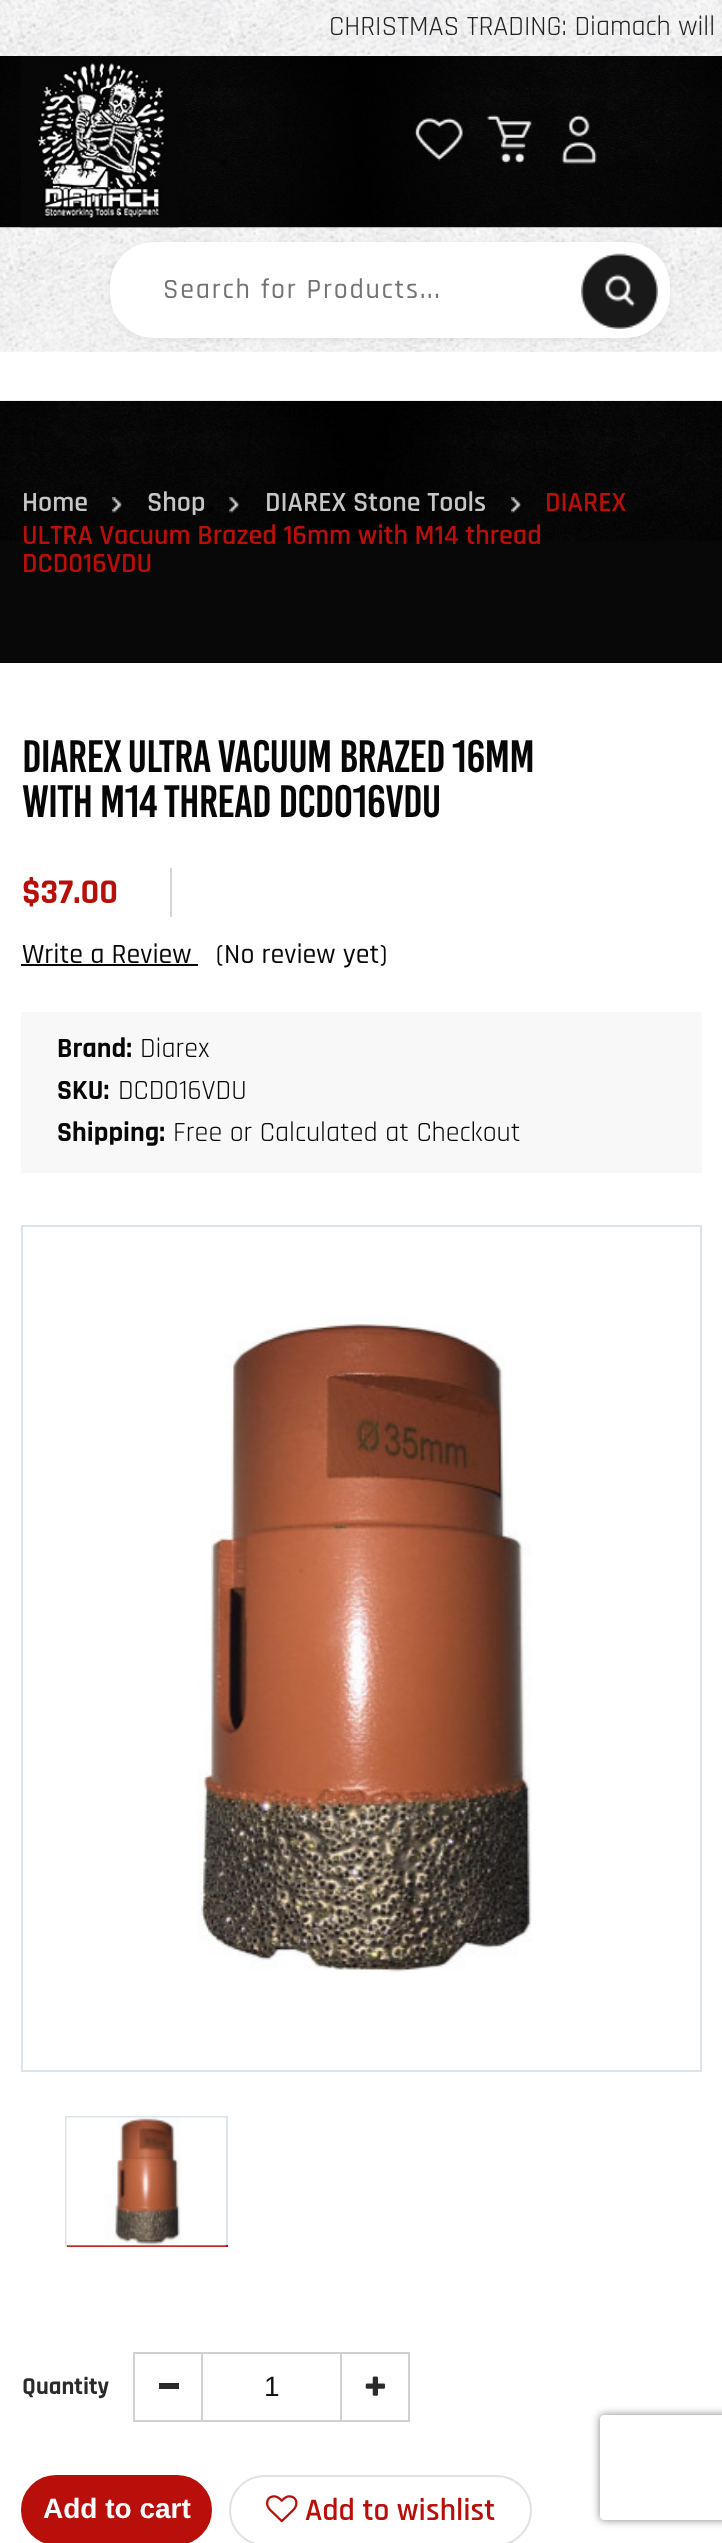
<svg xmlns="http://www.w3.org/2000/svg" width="722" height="2543">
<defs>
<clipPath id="clip1"><path d="M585 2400h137v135h-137zm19 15h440c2 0 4 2 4 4v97c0 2-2 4-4 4h-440c-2 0-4-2-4-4v-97c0-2 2-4 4-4z" clip-rule="evenodd"/></clipPath>
</defs>
<rect width="100%" height="100%" fill="#fff"/>
<image x="0" y="0" width="722" height="56" href="media/1.png"/>
<text x="329" y="35" style="font-family:Rajdhani;font-size:28px;fill:#222">CHRISTMAS TRADING: Diamach will</text>
<image x="0" y="56" width="722" height="172" href="media/2.png"/>
<image x="21" y="56" width="158" height="172" href="media/3.png"/>
<image x="414" y="118" width="49" height="43" href="media/4.png"/>
<image x="487" y="115" width="45" height="49" href="media/5.png"/>
<image x="561" y="115" width="36" height="49" href="media/6.png"/>
<image x="0" y="227" width="722" height="125" href="media/7.png"/>
<rect x="110" y="243" width="560" height="97" rx="44" fill="#6565651a" filter="blur(2.5px)"/>
<rect x="110" y="242" width="560" height="96" rx="44" fill="#fff"/>
<text x="163" y="298" style="font-family:Rajdhani;font-size:28px;font-weight:500;letter-spacing:1.75px;fill:#717475">Search for Products...</text>
<image x="581" y="253" width="77" height="76" href="media/8.png"/>
<rect y="540" width="722" height="123" fill="#080808"/>
<image x="0" y="400" width="722" height="141" href="media/9.png"/>
<text x="22" y="511" style="font-family:Rajdhani;font-size:28px;font-weight:600;fill:#c6c6c6">Home</text>
<image x="112" y="497" width="11" height="16" href="media/10.png"/>
<text x="147" y="511" style="font-family:Rajdhani;font-size:28px;font-weight:600;fill:#c6c6c6">Shop</text>
<image x="229" y="497" width="11" height="16" href="media/11.png"/>
<text x="265" y="511" style="font-family:Rajdhani;font-size:28px;font-weight:600;fill:#c6c6c6">DIAREX Stone Tools</text>
<image x="511" y="497" width="11" height="16" href="media/12.png"/>
<text x="545" y="511" style="font-family:Rajdhani;font-size:28px;font-weight:600;fill:#b80f0a">DIAREX</text>
<text x="22" y="544" style="font-family:Rajdhani;font-size:28px;font-weight:600;fill:#b80f0a">ULTRA Vacuum Brazed 16mm with M14 thread</text>
<text x="22" y="572" style="font-family:Rajdhani;font-size:28px;font-weight:600;fill:#b80f0a">DCD016VDU</text>
<text x="22" y="772" style="font-family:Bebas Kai;font-size:45.5px;letter-spacing:-0.9px;fill:#070707">DIAREX ULTRA VACUUM BRAZED 16MM</text>
<text x="22" y="817" style="font-family:Bebas Kai;font-size:45.5px;letter-spacing:-0.9px;fill:#070707">WITH M14 THREAD DCD016VDU</text>
<rect x="170" y="868" width="2" height="49" fill="#d4d4d4"/>
<text x="22" y="903" style="font-family:Rajdhani;font-size:35px;font-weight:bold;fill:#b80f0a">$37.00</text>
<text x="22" y="963" style="font-family:Rajdhani;font-size:28px;font-weight:500;fill:#070707">Write a Review</text>
<rect x="21" y="964" width="177" height="2" fill="#070707"/>
<text x="216" y="963" style="font-family:Rajdhani;font-size:28px;font-weight:500;fill:#070707">(No review yet)</text>
<rect x="21" y="1012" width="681" height="161" fill="#f8f8f8"/>
<text x="57" y="1057" style="font-family:Rajdhani;font-size:28px;font-weight:bold;fill:#070707">Brand:</text>
<text x="140" y="1057" style="font-family:Rajdhani;font-size:28px;fill:#070707">Diarex</text>
<text x="57" y="1099" style="font-family:Rajdhani;font-size:28px;font-weight:bold;fill:#070707">SKU:</text>
<text x="118" y="1099" style="font-family:Rajdhani;font-size:28px;fill:#070707">DCD016VDU</text>
<text x="57" y="1141" style="font-family:Rajdhani;font-size:28px;font-weight:bold;fill:#070707">Shipping:</text>
<text x="173" y="1141" style="font-family:Rajdhani;font-size:28px;fill:#070707">Free or Calculated at Checkout</text>
<rect x="22" y="1226" width="679" height="845" fill="none" stroke="#dbe3eb" stroke-width="2"/>
<image x="197" y="1316" width="335" height="657" href="media/13.png"/>
<rect x="65" y="2116" width="163" height="2" fill="#dbe3eb"/>
<rect x="226" y="2116" width="2" height="131" fill="#dbe3eb"/>
<rect x="65" y="2245" width="163" height="2" fill="#b80f0a"/>
<rect x="65" y="2116" width="2" height="131" fill="#dbe3eb"/>
<image x="66" y="2117" width="161" height="130" href="media/14.png"/>
<text x="22" y="2394" style="font-family:Rajdhani;font-size:24.5px;font-weight:bold;fill:#2b2b2b">Quantity</text>
<rect x="134" y="2353" width="68" height="68" fill="none" stroke="#d1d1d1" stroke-width="2"/>
<rect x="159" y="2383" width="20" height="6" fill="#2b2b2b"/>
<rect x="201" y="2352" width="140" height="2" fill="#d1d1d1"/>
<rect x="201" y="2420" width="140" height="2" fill="#d1d1d1"/>
<text x="264" y="2396" style="font-family:Liberation Sans;font-size:28px;fill:#141416">1</text>
<rect x="341" y="2353" width="68" height="68" fill="none" stroke="#d1d1d1" stroke-width="2"/>
<image x="365" y="2376" width="20" height="20" href="media/15.png"/>
<rect x="23" y="2477" width="187" height="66" rx="33" fill="#b80f0a" stroke="#b80f0a" stroke-width="4"/>
<text x="43" y="2518" style="font-family:Liberation Sans;font-size:28px;font-weight:bold;fill:#fff">Add to cart</text>
<rect x="230" y="2476" width="301" height="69" rx="34.5" fill="none" stroke="#e1e1e1" stroke-width="2"/>
<image x="266" y="2495" width="32" height="28" href="media/16.png"/>
<text x="305" y="2520" style="font-family:Rajdhani;font-size:31.5px;font-weight:600;fill:#b80f0a">Add to wishlist</text>
<g clip-path="url(#clip1)">
<rect x="600" y="2415" width="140" height="105" rx="4" fill="#808080" filter="blur(4.5px)"/>
</g>
</svg>
